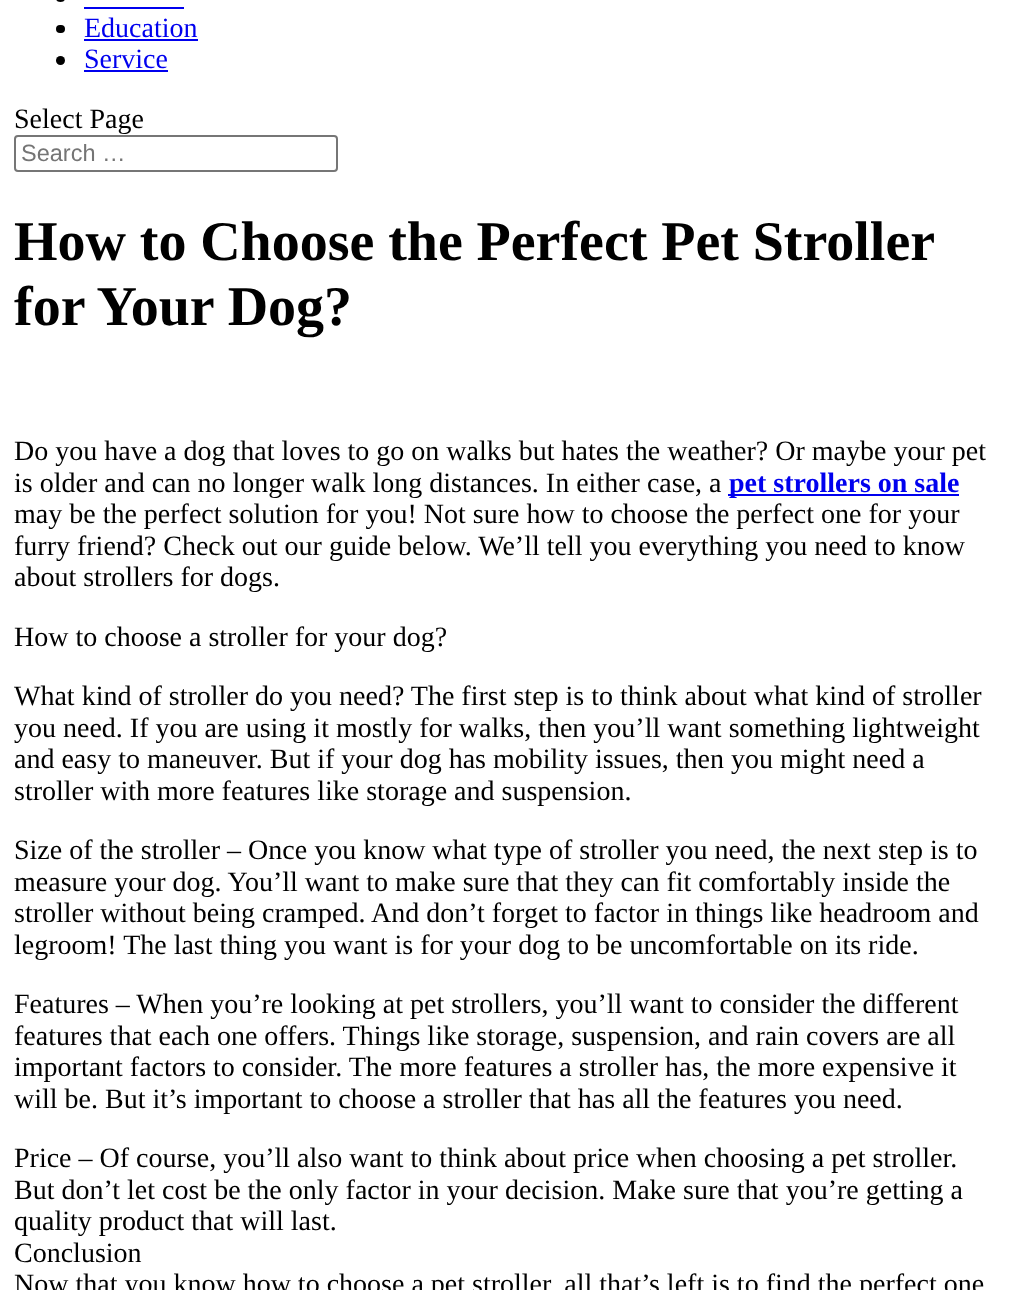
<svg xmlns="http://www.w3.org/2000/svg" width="1015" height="1290">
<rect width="100%" height="100%" fill="#fff"/>
<rect x="56" y="-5" width="9" height="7" rx="4.5" fill="#000"/>
<rect x="84" y="7" width="100" height="2" fill="#00e"/>
<rect x="56" y="25" width="9" height="8" rx="4" fill="#000"/>
<text x="84" y="37" style="font-family:Liberation Serif;font-size:28px;fill:#00e">Education</text>
<rect x="84" y="39" width="114" height="2" fill="#00e"/>
<circle cx="60.5" cy="60.5" r="4.5" fill="#000"/>
<text x="84" y="68" style="font-family:Liberation Serif;font-size:28px;fill:#00e">Service</text>
<rect x="84" y="70" width="84" height="2" fill="#00e"/>
<text x="14" y="128" style="font-family:Liberation Serif;font-size:28px;fill:#000">Select Page</text>
<rect x="15" y="136" width="322" height="35" rx="3" fill="none" stroke="#767676" stroke-width="2"/>
<text x="21" y="161" style="font-family:Liberation Sans;font-size:23.5px;fill:#757575">Search …</text>
<text x="14" y="260" word-spacing="-0.25" style="font-family:Liberation Serif;font-size:56px;font-weight:bold;fill:#000">How to Choose the Perfect Pet Stroller</text>
<text x="14" y="325" style="font-family:Liberation Serif;font-size:56px;font-weight:bold;fill:#000">for Your Dog?</text>
<text x="14" y="460" style="font-family:Liberation Serif;font-size:28px;fill:#000">Do you have a dog that loves to go on walks but hates the weather? Or maybe your pet</text>
<text x="14" y="492" style="font-family:Liberation Serif;font-size:28px;fill:#000">is older and can no longer walk long distances. In either case, a</text>
<rect x="728" y="494" width="231" height="2" fill="#00e"/>
<text x="729" y="492" style="font-family:Liberation Serif;font-size:28px;font-weight:bold;fill:#00e">pet strollers on sale</text>
<text x="14" y="523" style="font-family:Liberation Serif;font-size:28px;fill:#000">may be the perfect solution for you! Not sure how to choose the perfect one for your</text>
<text x="14" y="555" style="font-family:Liberation Serif;font-size:28px;fill:#000">furry friend? Check out our guide below. We’ll tell you everything you need to know</text>
<text x="14" y="586" style="font-family:Liberation Serif;font-size:28px;fill:#000">about strollers for dogs.</text>
<text x="14" y="646" style="font-family:Liberation Serif;font-size:28px;fill:#000">How to choose a stroller for your dog?</text>
<text x="14" y="705" style="font-family:Liberation Serif;font-size:28px;fill:#000">What kind of stroller do you need? The first step is to think about what kind of stroller</text>
<text x="14" y="737" style="font-family:Liberation Serif;font-size:28px;fill:#000">you need. If you are using it mostly for walks, then you’ll want something lightweight</text>
<text x="14" y="768" style="font-family:Liberation Serif;font-size:28px;fill:#000">and easy to maneuver. But if your dog has mobility issues, then you might need a</text>
<text x="14" y="800" style="font-family:Liberation Serif;font-size:28px;fill:#000">stroller with more features like storage and suspension.</text>
<text x="14" y="859" style="font-family:Liberation Serif;font-size:28px;fill:#000">Size of the stroller – Once you know what type of stroller you need, the next step is to</text>
<text x="14" y="891" style="font-family:Liberation Serif;font-size:28px;fill:#000">measure your dog. You’ll want to make sure that they can fit comfortably inside the</text>
<text x="14" y="922" style="font-family:Liberation Serif;font-size:28px;fill:#000">stroller without being cramped. And don’t forget to factor in things like headroom and</text>
<text x="14" y="954" style="font-family:Liberation Serif;font-size:28px;fill:#000">legroom! The last thing you want is for your dog to be uncomfortable on its ride.</text>
<text x="14" y="1013" style="font-family:Liberation Serif;font-size:28px;fill:#000">Features – When you’re looking at pet strollers, you’ll want to consider the different</text>
<text x="14" y="1045" style="font-family:Liberation Serif;font-size:28px;fill:#000">features that each one offers. Things like storage, suspension, and rain covers are all</text>
<text x="14" y="1076" style="font-family:Liberation Serif;font-size:28px;fill:#000">important factors to consider. The more features a stroller has, the more expensive it</text>
<text x="14" y="1108" style="font-family:Liberation Serif;font-size:28px;fill:#000">will be. But it’s important to choose a stroller that has all the features you need.</text>
<text x="14" y="1167" style="font-family:Liberation Serif;font-size:28px;fill:#000">Price – Of course, you’ll also want to think about price when choosing a pet stroller.</text>
<text x="14" y="1199" style="font-family:Liberation Serif;font-size:28px;fill:#000">But don’t let cost be the only factor in your decision. Make sure that you’re getting a</text>
<text x="14" y="1230" style="font-family:Liberation Serif;font-size:28px;fill:#000">quality product that will last.</text>
<text x="14" y="1262" style="font-family:Liberation Serif;font-size:28px;fill:#000">Conclusion</text>
<text x="14" y="1293" style="font-family:Liberation Serif;font-size:28px;fill:#000">Now that you know how to choose a pet stroller, all that’s left is to find the perfect one</text>
</svg>
